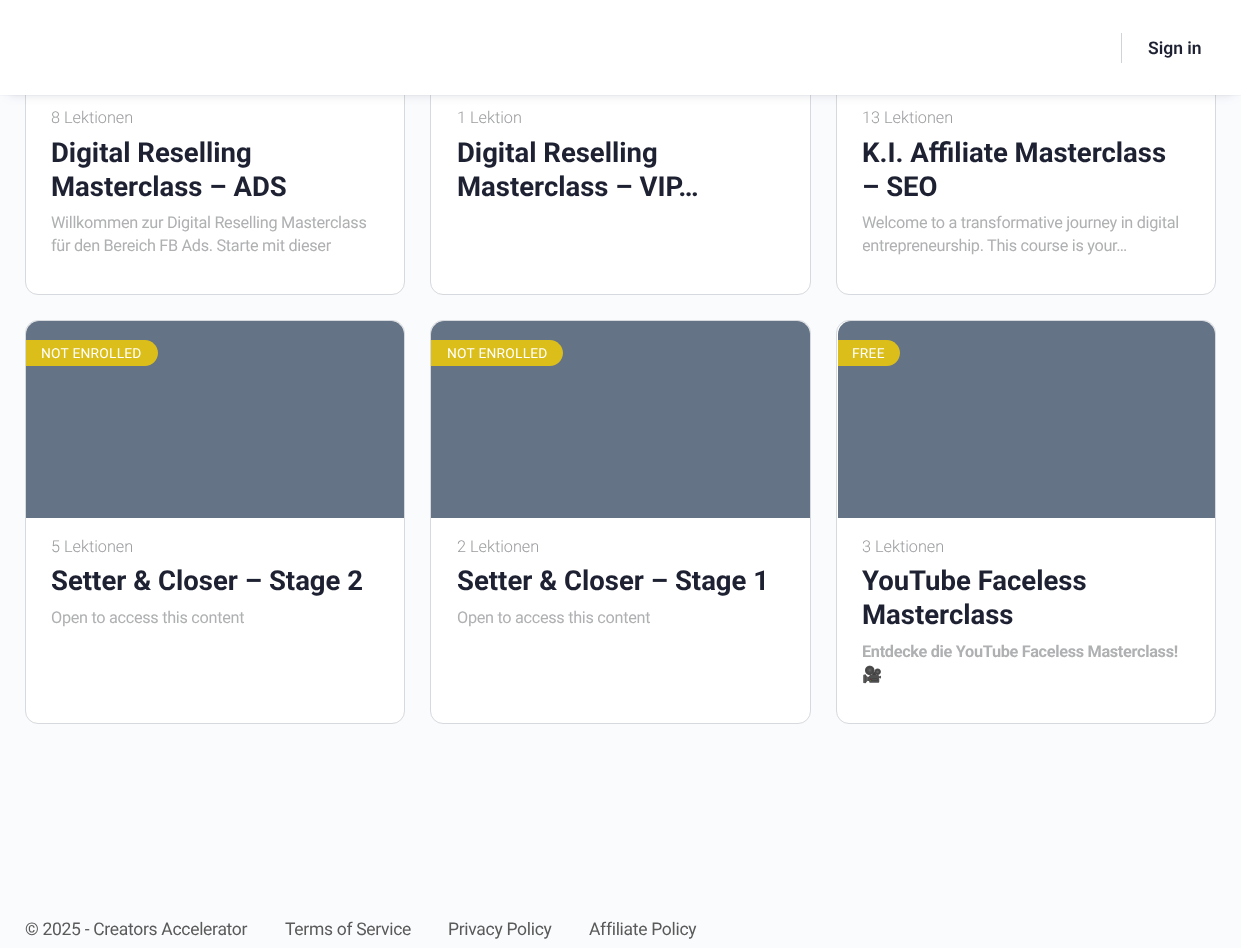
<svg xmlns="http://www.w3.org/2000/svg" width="1241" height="948">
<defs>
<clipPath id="clip1"><rect x="863" y="213" width="327" height="43"/></clipPath>
<clipPath id="clip2"><rect x="26" y="321" width="378" height="402" rx="11"/></clipPath>
<clipPath id="clip3"><rect x="431" y="321" width="379" height="402" rx="11"/></clipPath>
<clipPath id="clip4"><rect x="838" y="321" width="377" height="402" rx="11"/></clipPath>
<clipPath id="clip5"><rect x="863" y="641" width="327" height="44"/></clipPath>
</defs>
<rect width="100%" height="100%" fill="#fafbfd"/>
<rect x="25.5" y="-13.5" width="379" height="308" rx="12.5" fill="#fff" stroke="#d6d9dd"/>
<rect x="430.5" y="-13.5" width="380" height="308" rx="12.5" fill="#fff" stroke="#d6d9dd"/>
<rect x="836.5" y="-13.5" width="379" height="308" rx="12.5" fill="#fff" stroke="#d6d9dd"/>
<rect x="9" y="15" width="1224" height="78" fill="#41476c40" filter="blur(6px)"/>
<rect y="95" width="1241" height="1" fill="#8b8d9d0d"/>
<rect width="1241" height="95" fill="#fff"/>
<rect x="1121" y="33" width="1" height="30" fill="#d2d3d6"/>
<text x="1148" y="54" style="font-family:Roboto;font-size:17.5px;font-weight:600;fill:#1e2132">Sign in</text>
<text x="51" y="123" style="font-family:Roboto;font-size:16.25px;font-weight:300;fill:#9b9c9f">8 Lektionen</text>
<text x="51" y="162" style="font-family:Roboto;font-size:27.5px;font-weight:bold;fill:#1e2132">Digital Reselling</text>
<text x="51" y="196" style="font-family:Roboto;font-size:27.5px;font-weight:bold;fill:#1e2132">Masterclass – ADS</text>
<text x="51" y="228" style="font-family:Roboto;font-size:16.25px;letter-spacing:-0.3px;fill:#afb0b2">Willkommen zur Digital Reselling Masterclass</text>
<text x="51" y="251" style="font-family:Roboto;font-size:16.25px;letter-spacing:-0.3px;fill:#afb0b2">für den Bereich FB Ads. Starte mit dieser</text>
<text x="457" y="123" style="font-family:Roboto;font-size:16.25px;font-weight:300;fill:#9b9c9f">1 Lektion</text>
<text x="457" y="162" style="font-family:Roboto;font-size:27.5px;font-weight:bold;fill:#1e2132">Digital Reselling</text>
<text x="457" y="196" style="font-family:Roboto;font-size:27.5px;font-weight:bold;fill:#1e2132">Masterclass – VIP…</text>
<text x="862" y="123" style="font-family:Roboto;font-size:16.25px;font-weight:300;fill:#9b9c9f">13 Lektionen</text>
<text x="862" y="162" style="font-family:Roboto;font-size:27.5px;font-weight:bold;fill:#1e2132">K.I. Affiliate Masterclass</text>
<text x="862" y="196" style="font-family:Roboto;font-size:27.5px;font-weight:bold;fill:#1e2132">– SEO</text>
<text x="862" y="228" style="font-family:Roboto;font-size:16.25px;letter-spacing:-0.3px;fill:#afb0b2">Welcome to a transformative journey in digital</text>
<g clip-path="url(#clip1)">
<text x="862" y="251" style="font-family:Roboto;font-size:16.25px;letter-spacing:-0.3px;fill:#afb0b2">entrepreneurship. This course is your…</text>
</g>
<rect x="25.5" y="320.5" width="379" height="403" rx="12.5" fill="#fff" stroke="#d6d9dd"/>
<g clip-path="url(#clip2)">
<path d="M39 321h352c7 0 13 6 13 13v184h-378v-184c0-7 6-13 13-13z" fill="#647385"/>
</g>
<path d="M26 340h119c7 0 13 6 13 13c0 7-6 13-13 13h-119z" fill="#dbbe1a"/>
<text x="41" y="358" style="font-family:Roboto;font-size:13.75px;letter-spacing:0.25px;fill:#fff">NOT ENROLLED</text>
<text x="51" y="552" style="font-family:Roboto;font-size:16.25px;font-weight:300;fill:#9b9c9f">5 Lektionen</text>
<text x="51" y="590" style="font-family:Roboto;font-size:27.5px;font-weight:bold;fill:#1e2132">Setter &amp; Closer – Stage 2</text>
<text x="51" y="623" style="font-family:Roboto;font-size:16.25px;letter-spacing:-0.3px;fill:#afb0b2">Open to access this content</text>
<rect x="430.5" y="320.5" width="380" height="403" rx="12.5" fill="#fff" stroke="#d6d9dd"/>
<g clip-path="url(#clip3)">
<path d="M444 321h353c7 0 13 6 13 13v184h-379v-184c0-7 6-13 13-13z" fill="#647385"/>
</g>
<path d="M431 340h119c7 0 13 6 13 13c0 7-6 13-13 13h-119z" fill="#dbbe1a"/>
<text x="447" y="358" style="font-family:Roboto;font-size:13.75px;letter-spacing:0.25px;fill:#fff">NOT ENROLLED</text>
<text x="457" y="552" style="font-family:Roboto;font-size:16.25px;font-weight:300;fill:#9b9c9f">2 Lektionen</text>
<text x="457" y="590" style="font-family:Roboto;font-size:27.5px;font-weight:bold;fill:#1e2132">Setter &amp; Closer – Stage 1</text>
<text x="457" y="623" style="font-family:Roboto;font-size:16.25px;letter-spacing:-0.3px;fill:#afb0b2">Open to access this content</text>
<rect x="836.5" y="320.5" width="379" height="403" rx="12.5" fill="#fff" stroke="#d6d9dd"/>
<g clip-path="url(#clip4)">
<path d="M851 321h351c7 0 13 6 13 13v184h-377v-184c0-7 6-13 13-13z" fill="#647385"/>
</g>
<path d="M838 340h49c7 0 13 6 13 13c0 7-6 13-13 13h-49z" fill="#dbbe1a"/>
<text x="852" y="358" style="font-family:Roboto;font-size:13.75px;letter-spacing:0.25px;fill:#fff">FREE</text>
<text x="862" y="552" style="font-family:Roboto;font-size:16.25px;font-weight:300;fill:#9b9c9f">3 Lektionen</text>
<text x="862" y="590" style="font-family:Roboto;font-size:27.5px;font-weight:bold;fill:#1e2132">YouTube Faceless</text>
<text x="862" y="624" style="font-family:Roboto;font-size:27.5px;font-weight:bold;fill:#1e2132">Masterclass</text>
<text x="862" y="657" style="font-family:Roboto;font-size:16.25px;font-weight:bold;letter-spacing:-0.3px;fill:#afb0b2">Entdecke die YouTube Faceless Masterclass!</text>
<g clip-path="url(#clip5)">
<text x="862" y="680" style="font-family:Noto Color Emoji;font-size:16.25px;letter-spacing:-0.3px;fill:#afb0b2">🎥</text>
</g>
<text x="25" y="935" style="font-family:Roboto;font-size:17.5px;letter-spacing:-0.3px;fill:#5a5a5a">© 2025 - Creators Accelerator</text>
<text x="285" y="935" style="font-family:Roboto;font-size:17.5px;letter-spacing:-0.3px;fill:#5a5a5a">Terms of Service</text>
<text x="448" y="935" style="font-family:Roboto;font-size:17.5px;letter-spacing:-0.3px;fill:#5a5a5a">Privacy Policy</text>
<text x="589" y="935" style="font-family:Roboto;font-size:17.5px;letter-spacing:-0.3px;fill:#5a5a5a">Affiliate Policy</text>
</svg>
